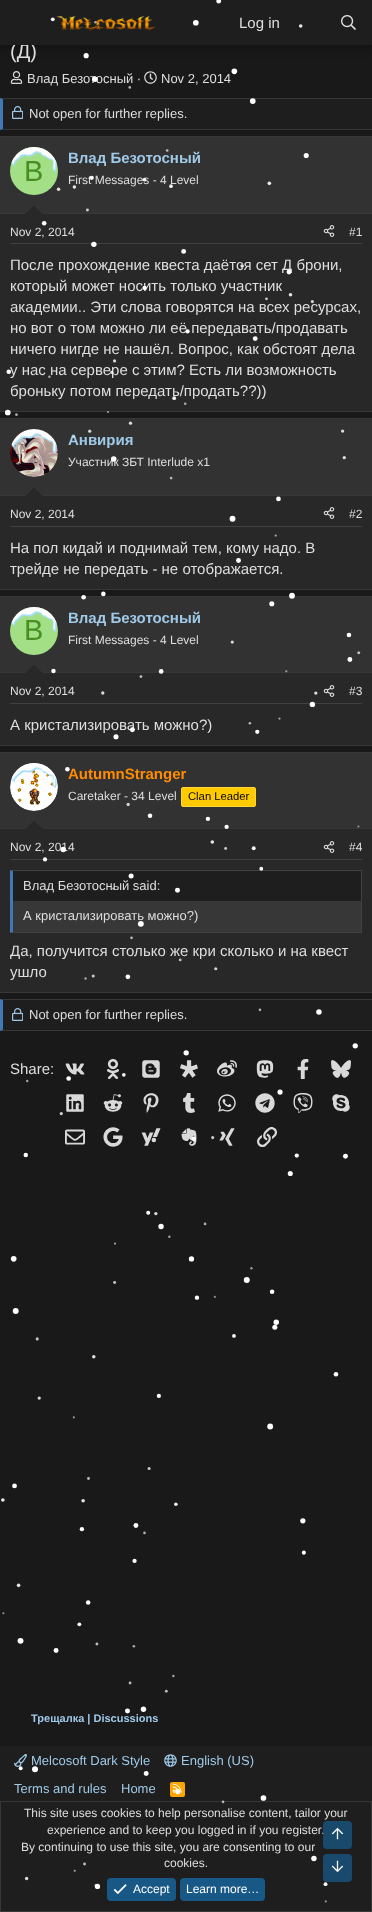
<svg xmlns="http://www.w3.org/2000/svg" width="372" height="1912">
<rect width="100%" height="100%" fill="#191919"/>
<rect x="-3" y="-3" width="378" height="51" fill="#0000004d" filter="blur(4px)"/>
<text x="10" y="58" style="font-family:Liberation Sans;font-size:20px;fill:#dedede">(Д)</text>
<rect width="372" height="45" fill="#1e1e1e"/>
<image x="56" y="16" width="100" height="15" href="media/2.png"/>
<text x="239" y="28" style="font-family:Liberation Sans;font-size:15px;fill:#dedede">Log in</text>
<image x="341" y="15" width="15" height="15" href="media/3.png"/>
<image x="10" y="71" width="13" height="13" href="media/4.png"/>
<text x="27" y="83" style="font-family:Liberation Sans;font-size:13px;fill:#dedede">Влад Безотосный ·</text>
<image x="144" y="71" width="13" height="13" href="media/5.png"/>
<text x="161" y="83" style="font-family:Liberation Sans;font-size:13px;fill:#dedede">Nov 2, 2014</text>
<rect y="98" width="372" height="32" fill="#1e1e1e"/>
<path d="M0 98h372v1h-369z" fill="#373737"/>
<path d="M372 130h-372l3-1h369z" fill="#373737"/>
<path d="M0 130v-32l3 1v30z" fill="#4079b5"/>
<image x="12" y="106" width="11" height="13" href="media/6.png"/>
<text x="29" y="118" style="font-family:Liberation Sans;font-size:13px;fill:#dedede">Not open for further replies.</text>
<rect y="214" width="372" height="197" fill="#282828"/>
<rect y="136" width="372" height="1" fill="#373737"/>
<rect y="411" width="372" height="1" fill="#373737"/>
<rect y="137" width="372" height="76" fill="#323232"/>
<rect y="213" width="372" height="1" fill="#373737"/>
<circle cx="34" cy="171" r="24" fill="#a3e085"/>
<text x="24" y="181" style="font-family:Liberation Sans;font-size:29px;fill:#478f24">В</text>
<image x="11" y="147" width="46" height="25" href="media/7.png"/>
<text x="68" y="163" style="font-family:Liberation Sans;font-size:15px;font-weight:bold;fill:#9fc9e7">Влад Безотосный</text>
<text x="68" y="184" style="font-family:Liberation Sans;font-size:12px;fill:#dedede">First Messages - 4 Level</text>
<path d="M44 214h-20l10-10z" fill="#373737"/>
<path d="M43 214h-18l9-9z" fill="#282828"/>
<rect x="10" y="243" width="352" height="1" fill="#414141"/>
<text x="10" y="236" style="font-family:Liberation Sans;font-size:12px;fill:#dedede">Nov 2, 2014</text>
<image x="323" y="225" width="12" height="12" href="media/8.png"/>
<text x="349" y="236" style="font-family:Liberation Sans;font-size:12px;fill:#dedede">#1</text>
<text x="10" y="270" style="font-family:Liberation Sans;font-size:15px;fill:#dedede">После прохождение квеста даётся сет Д брони,</text>
<text x="10" y="291" style="font-family:Liberation Sans;font-size:15px;fill:#dedede">который может носить только участник</text>
<text x="10" y="312" style="font-family:Liberation Sans;font-size:15px;fill:#dedede">академии.. Эти слова говорятся на всех ресурсах,</text>
<text x="10" y="333" style="font-family:Liberation Sans;font-size:15px;fill:#dedede">но вот о том можно ли её передавать/продавать</text>
<text x="10" y="354" style="font-family:Liberation Sans;font-size:15px;fill:#dedede">ничего нигде не нашёл. Вопрос, как обстоят дела</text>
<text x="10" y="375" style="font-family:Liberation Sans;font-size:15px;fill:#dedede">у нас на сервере с этим? Есть ли возможность</text>
<text x="10" y="396" style="font-family:Liberation Sans;font-size:15px;fill:#dedede">броньку потом передать/продать??))</text>
<rect y="496" width="372" height="93" fill="#282828"/>
<rect y="418" width="372" height="1" fill="#373737"/>
<rect y="589" width="372" height="1" fill="#373737"/>
<rect y="419" width="372" height="76" fill="#323232"/>
<rect y="495" width="372" height="1" fill="#373737"/>
<image x="10" y="429" width="48" height="48" href="media/9.png"/>
<image x="11" y="429" width="46" height="25" href="media/10.png"/>
<text x="68" y="445" style="font-family:Liberation Sans;font-size:15px;font-weight:bold;fill:#9fc9e7">Анвирия</text>
<text x="68" y="466" style="font-family:Liberation Sans;font-size:12px;fill:#dedede">Участник ЗБТ Interlude x1</text>
<path d="M44 496h-20l10-10z" fill="#373737"/>
<path d="M43 496h-18l9-9z" fill="#282828"/>
<rect x="10" y="526" width="352" height="1" fill="#414141"/>
<text x="10" y="518" style="font-family:Liberation Sans;font-size:12px;fill:#dedede">Nov 2, 2014</text>
<image x="323" y="507" width="12" height="12" href="media/8.png"/>
<text x="349" y="518" style="font-family:Liberation Sans;font-size:12px;fill:#dedede">#2</text>
<text x="10" y="553" style="font-family:Liberation Sans;font-size:15px;fill:#dedede">На пол кидай и поднимай тем, кому надо. В</text>
<text x="10" y="574" style="font-family:Liberation Sans;font-size:15px;fill:#dedede">трейде не передать - не отображается.</text>
<rect y="673" width="372" height="72" fill="#282828"/>
<rect y="596" width="372" height="1" fill="#373737"/>
<rect y="745" width="372" height="1" fill="#373737"/>
<rect y="597" width="372" height="75" fill="#323232"/>
<rect y="672" width="372" height="1" fill="#373737"/>
<circle cx="34" cy="631" r="24" fill="#a3e085"/>
<text x="24" y="640" style="font-family:Liberation Sans;font-size:29px;fill:#478f24">В</text>
<image x="11" y="607" width="46" height="25" href="media/11.png"/>
<text x="68" y="623" style="font-family:Liberation Sans;font-size:15px;font-weight:bold;fill:#9fc9e7">Влад Безотосный</text>
<text x="68" y="644" style="font-family:Liberation Sans;font-size:12px;fill:#dedede">First Messages - 4 Level</text>
<path d="M44 673h-20l10-10z" fill="#373737"/>
<path d="M43 673h-18l9-9z" fill="#282828"/>
<rect x="10" y="703" width="352" height="1" fill="#414141"/>
<text x="10" y="695" style="font-family:Liberation Sans;font-size:12px;fill:#dedede">Nov 2, 2014</text>
<image x="323" y="685" width="12" height="12" href="media/12.png"/>
<text x="349" y="695" style="font-family:Liberation Sans;font-size:12px;fill:#dedede">#3</text>
<text x="10" y="730" style="font-family:Liberation Sans;font-size:15px;fill:#dedede">А кристализировать можно?)</text>
<rect y="829" width="372" height="163" fill="#282828"/>
<rect y="752" width="372" height="1" fill="#373737"/>
<rect y="992" width="372" height="1" fill="#373737"/>
<rect y="753" width="372" height="75" fill="#323232"/>
<rect y="828" width="372" height="1" fill="#373737"/>
<image x="10" y="763" width="48" height="48" href="media/13.png"/>
<image x="11" y="763" width="46" height="25" href="media/14.png"/>
<text x="68" y="779" style="font-family:Liberation Sans;font-size:15px;font-weight:bold;fill:#ff8c00">AutumnStranger</text>
<text x="68" y="800" style="font-family:Liberation Sans;font-size:12px;fill:#dedede">Caretaker - 34 Level</text>
<rect x="181.5" y="787.5" width="74" height="19" rx="1.5" fill="#ffcb00" stroke="#ffd533"/>
<text x="188" y="800" style="font-family:Liberation Sans;font-size:11.25px;fill:#000">Clan Leader</text>
<path d="M44 829h-20l10-10z" fill="#373737"/>
<path d="M43 829h-18l9-9z" fill="#282828"/>
<rect x="10" y="859" width="352" height="1" fill="#414141"/>
<text x="10" y="851" style="font-family:Liberation Sans;font-size:12px;fill:#dedede">Nov 2, 2014</text>
<image x="323" y="841" width="12" height="12" href="media/8.png"/>
<text x="349" y="851" style="font-family:Liberation Sans;font-size:12px;fill:#dedede">#4</text>
<rect x="13" y="901" width="348" height="31" fill="#373737"/>
<path d="M10 870h352l-1 1h-348z" fill="#414141"/>
<rect x="361" y="870" width="1" height="63" fill="#414141"/>
<path d="M362 933h-352l3-1h348z" fill="#414141"/>
<path d="M10 933v-63l3 1v61z" fill="#4079b5"/>
<rect x="13" y="871" width="348" height="30" fill="#1e1e1e"/>
<text x="23" y="890" style="font-family:Liberation Sans;font-size:13px;fill:#dedede">Влад Безотосный said:</text>
<text x="23" y="920" style="font-family:Liberation Sans;font-size:13px;fill:#dedede">А кристализировать можно?)</text>
<text x="10" y="956" style="font-family:Liberation Sans;font-size:15px;fill:#dedede">Да, получится столько же кри сколько и на квест</text>
<text x="10" y="977" style="font-family:Liberation Sans;font-size:15px;fill:#dedede">ушло</text>
<rect y="999" width="372" height="32" fill="#1e1e1e"/>
<path d="M0 999h372v1h-369z" fill="#373737"/>
<path d="M372 1031h-372l3-1h369z" fill="#373737"/>
<path d="M0 1031v-32l3 1v30z" fill="#4079b5"/>
<image x="12" y="1008" width="11" height="13" href="media/6.png"/>
<text x="29" y="1019" style="font-family:Liberation Sans;font-size:13px;fill:#dedede">Not open for further replies.</text>
<text x="10" y="1074" style="font-family:Liberation Sans;font-size:15px;fill:#dedede">Share:</text>
<image x="65" y="1063" width="20" height="12" href="media/15.png"/>
<image x="107" y="1059" width="12" height="20" href="media/16.png"/>
<image x="142" y="1060" width="18" height="18" href="media/17.png"/>
<image x="180" y="1060" width="18" height="18" href="media/18.png"/>
<image x="217" y="1060" width="20" height="17" href="media/19.png"/>
<image x="256" y="1060" width="18" height="18" href="media/20.png"/>
<image x="297" y="1059" width="12" height="20" href="media/21.png"/>
<image x="331" y="1060" width="20" height="18" href="media/22.png"/>
<image x="66" y="1094" width="18" height="18" href="media/23.png"/>
<image x="103" y="1094" width="20" height="18" href="media/24.png"/>
<image x="143" y="1093" width="16" height="20" href="media/25.png"/>
<image x="183" y="1093" width="12" height="20" href="media/26.png"/>
<image x="218" y="1094" width="18" height="18" href="media/27.png"/>
<image x="255" y="1093" width="20" height="20" href="media/28.png"/>
<image x="293" y="1093" width="20" height="20" href="media/29.png"/>
<image x="332" y="1094" width="18" height="18" href="media/30.png"/>
<image x="65" y="1129" width="20" height="16" href="media/31.png"/>
<image x="103" y="1127" width="20" height="20" href="media/32.png"/>
<image x="141" y="1128" width="20" height="18" href="media/33.png"/>
<image x="181" y="1128" width="16" height="18" href="media/34.png"/>
<image x="219" y="1128" width="16" height="18" href="media/35.png"/>
<image x="257" y="1127" width="20" height="20" href="media/36.png"/>
<text x="31" y="1722" style="font-family:Liberation Sans;font-size:11px;font-weight:bold;fill:#9fc9e7">Трещалка | Discussions</text>
<rect y="1746" width="372" height="55" fill="#1e1e1e"/>
<image x="14" y="1754" width="13" height="13" href="media/37.png"/>
<text x="31" y="1765" style="font-family:Liberation Sans;font-size:13px;fill:#9fc9e7">Melcosoft Dark Style</text>
<image x="164" y="1754" width="13" height="13" href="media/38.png"/>
<text x="181" y="1765" style="font-family:Liberation Sans;font-size:13px;fill:#9fc9e7">English (US)</text>
<text x="14" y="1793" style="font-family:Liberation Sans;font-size:13px;fill:#9fc9e7">Terms and rules</text>
<text x="121" y="1793" style="font-family:Liberation Sans;font-size:13px;fill:#9fc9e7">Home</text>
<rect x="170" y="1782" width="15" height="15" rx="2" fill="#ffa500"/>
<image x="172" y="1783" width="10" height="10" href="media/39.png"/>
<rect x="0.5" y="1801.5" width="371" height="110" fill="#1e1e1e" stroke="#373737"/>
<text x="24" y="1817" style="font-family:Liberation Sans;font-size:12px;fill:#dedede">This site uses cookies to help personalise content, tailor your</text>
<text x="47" y="1834" style="font-family:Liberation Sans;font-size:12px;fill:#dedede">experience and to keep you logged in if you register.</text>
<text x="21" y="1851" style="font-family:Liberation Sans;font-size:12px;fill:#dedede">By continuing to use this site, you are consenting to our</text>
<text x="164" y="1867" style="font-family:Liberation Sans;font-size:12px;fill:#dedede">cookies.</text>
<rect x="107" y="1878" width="69" height="23" rx="4" fill="#185886"/>
<image x="113" y="1884" width="14" height="11" href="media/40.png"/>
<text x="133" y="1893" style="font-family:Liberation Sans;font-size:12px;fill:#fff">Accept</text>
<rect x="180" y="1878" width="85" height="23" rx="4" fill="#185886"/>
<text x="186" y="1893" style="font-family:Liberation Sans;font-size:12px;fill:#fff">Learn more…</text>
<rect x="323" y="1821" width="29" height="28" rx="4" fill="#185886bf"/>
<image x="331" y="1827" width="13" height="13" href="media/41.png"/>
<rect x="323" y="1854" width="29" height="28" rx="4" fill="#19496c"/>
<image x="331" y="1860" width="13" height="13" href="media/42.png"/>
<image x="1" y="0" width="360" height="1903" href="media/1.png"/>
</svg>
